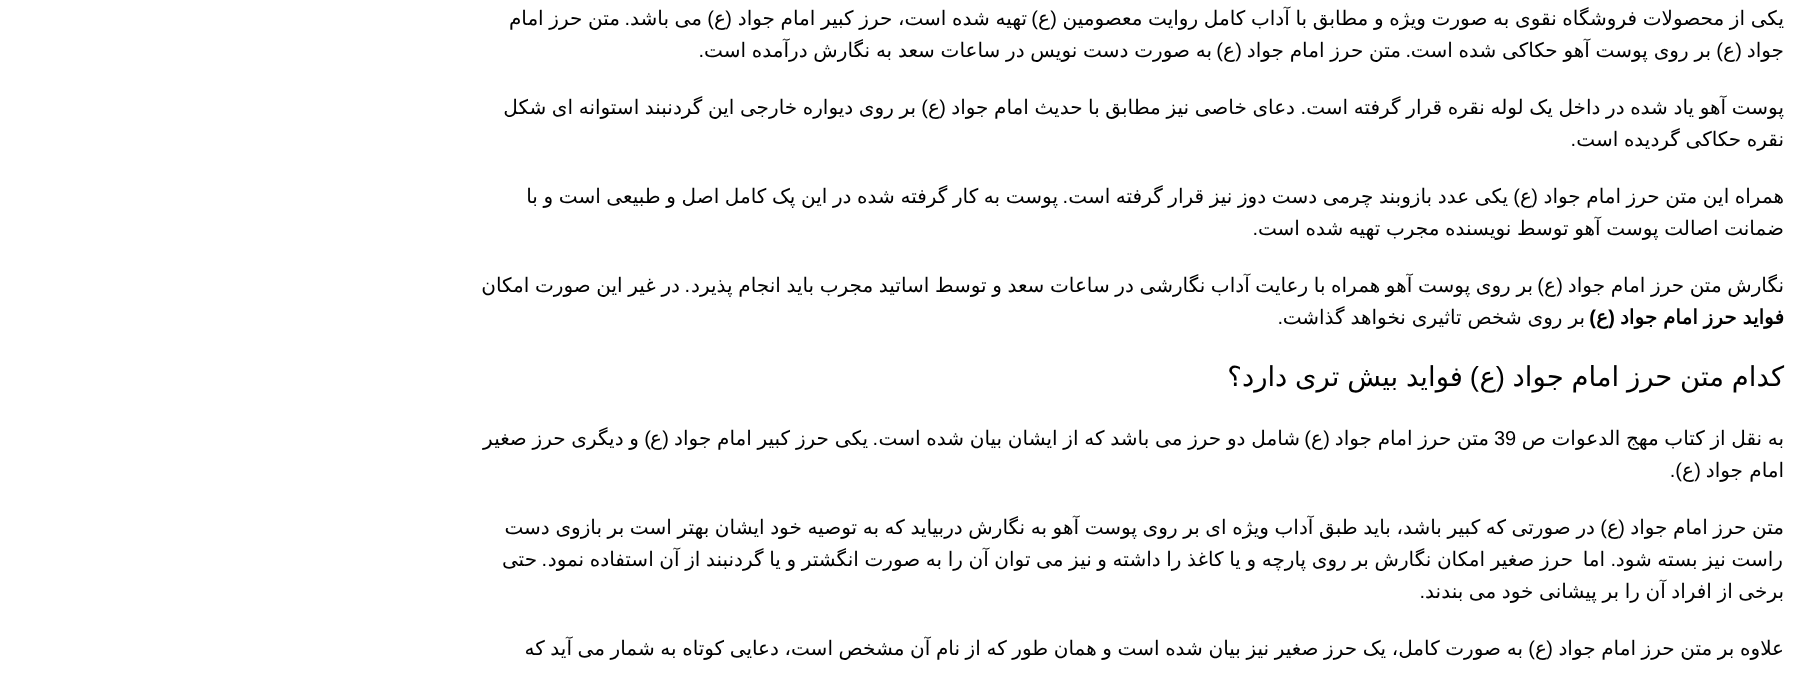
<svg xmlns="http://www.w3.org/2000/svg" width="1802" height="682">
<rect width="100%" height="100%" fill="#fff"/>
<text x="1784" y="25" word-spacing="-0.7" style="font-family:DejaVu Sans;font-size:20px;direction:rtl;fill:#000">یکی از محصولات فروشگاه نقوی به صورت ویژه و مطابق با آداب کامل روایت معصومین</text>
<text x="1057" y="25" style="font-family:Liberation Sans;font-size:20px;direction:rtl;fill:#000">(</text>
<text x="1050" y="25" style="font-family:DejaVu Sans;font-size:20px;direction:rtl;fill:#000">ع</text>
<text x="1038" y="25" style="font-family:Liberation Sans;font-size:20px;direction:rtl;fill:#000">)</text>
<text x="1027" y="25" word-spacing="-0.7" style="font-family:DejaVu Sans;font-size:20px;direction:rtl;fill:#000">تهیه شده است، حرز کبیر امام جواد</text>
<text x="732" y="25" style="font-family:Liberation Sans;font-size:20px;direction:rtl;fill:#000">(</text>
<text x="726" y="25" style="font-family:DejaVu Sans;font-size:20px;direction:rtl;fill:#000">ع</text>
<text x="714" y="25" style="font-family:Liberation Sans;font-size:20px;direction:rtl;fill:#000">)</text>
<text x="702" y="25" word-spacing="-0.7" style="font-family:DejaVu Sans;font-size:20px;direction:rtl;fill:#000">می باشد</text>
<text x="630" y="25" style="font-family:Liberation Sans;font-size:20px;direction:rtl;fill:#000">.</text>
<text x="620" y="25" word-spacing="-0.7" style="font-family:DejaVu Sans;font-size:20px;direction:rtl;fill:#000">متن حرز امام</text>
<text x="1784" y="57" style="font-family:DejaVu Sans;font-size:20px;direction:rtl;fill:#000">جواد</text>
<text x="1742" y="57" style="font-family:Liberation Sans;font-size:20px;direction:rtl;fill:#000">(</text>
<text x="1735" y="57" style="font-family:DejaVu Sans;font-size:20px;direction:rtl;fill:#000">ع</text>
<text x="1723" y="57" style="font-family:Liberation Sans;font-size:20px;direction:rtl;fill:#000">)</text>
<text x="1711" y="57" word-spacing="-0.6" style="font-family:DejaVu Sans;font-size:20px;direction:rtl;fill:#000">بر روی پوست آهو حکاکی شده است</text>
<text x="1411" y="57" style="font-family:Liberation Sans;font-size:20px;direction:rtl;fill:#000">.</text>
<text x="1401" y="57" word-spacing="-0.6" style="font-family:DejaVu Sans;font-size:20px;direction:rtl;fill:#000">متن حرز امام جواد</text>
<text x="1242" y="57" style="font-family:Liberation Sans;font-size:20px;direction:rtl;fill:#000">(</text>
<text x="1235" y="57" style="font-family:DejaVu Sans;font-size:20px;direction:rtl;fill:#000">ع</text>
<text x="1223" y="57" style="font-family:Liberation Sans;font-size:20px;direction:rtl;fill:#000">)</text>
<text x="1212" y="57" word-spacing="-0.6" style="font-family:DejaVu Sans;font-size:20px;direction:rtl;fill:#000">به صورت دست نویس در ساعات سعد به نگارش درآمده است</text>
<text x="704" y="57" style="font-family:Liberation Sans;font-size:20px;direction:rtl;fill:#000">.</text>
<text x="1784" y="114" word-spacing="-0.75" style="font-family:DejaVu Sans;font-size:20px;direction:rtl;fill:#000">پوست آهو یاد شده در داخل یک لوله نقره قرار گرفته است</text>
<text x="1306" y="114" style="font-family:Liberation Sans;font-size:20px;direction:rtl;fill:#000">.</text>
<text x="1295" y="114" word-spacing="-0.75" style="font-family:DejaVu Sans;font-size:20px;direction:rtl;fill:#000">دعای خاصی نیز مطابق با حدیث امام جواد</text>
<text x="946" y="114" style="font-family:Liberation Sans;font-size:20px;direction:rtl;fill:#000">(</text>
<text x="940" y="114" style="font-family:DejaVu Sans;font-size:20px;direction:rtl;fill:#000">ع</text>
<text x="928" y="114" style="font-family:Liberation Sans;font-size:20px;direction:rtl;fill:#000">)</text>
<text x="916" y="114" word-spacing="-0.75" style="font-family:DejaVu Sans;font-size:20px;direction:rtl;fill:#000">بر روی دیواره خارجی این گردنبند استوانه ای شکل</text>
<text x="1784" y="146" word-spacing="-0.75" style="font-family:DejaVu Sans;font-size:20px;direction:rtl;fill:#000">نقره حکاکی گردیده است</text>
<text x="1576" y="146" style="font-family:Liberation Sans;font-size:20px;direction:rtl;fill:#000">.</text>
<text x="1784" y="203" word-spacing="-0.75" style="font-family:DejaVu Sans;font-size:20px;direction:rtl;fill:#000">همراه این متن حرز امام جواد</text>
<text x="1538" y="203" style="font-family:Liberation Sans;font-size:20px;direction:rtl;fill:#000">(</text>
<text x="1532" y="203" style="font-family:DejaVu Sans;font-size:20px;direction:rtl;fill:#000">ع</text>
<text x="1520" y="203" style="font-family:Liberation Sans;font-size:20px;direction:rtl;fill:#000">)</text>
<text x="1508" y="203" word-spacing="-0.75" style="font-family:DejaVu Sans;font-size:20px;direction:rtl;fill:#000">یکی عدد بازوبند چرمی دست دوز نیز قرار گرفته است</text>
<text x="1068" y="203" style="font-family:Liberation Sans;font-size:20px;direction:rtl;fill:#000">.</text>
<text x="1058" y="203" word-spacing="-0.75" style="font-family:DejaVu Sans;font-size:20px;direction:rtl;fill:#000">پوست به کار گرفته شده در این پک کامل اصل و طبیعی است و با</text>
<text x="1784" y="235" word-spacing="-0.75" style="font-family:DejaVu Sans;font-size:20px;direction:rtl;fill:#000">ضمانت اصالت پوست آهو توسط نویسنده مجرب تهیه شده است</text>
<text x="1258" y="235" style="font-family:Liberation Sans;font-size:20px;direction:rtl;fill:#000">.</text>
<text x="1784" y="292" word-spacing="-0.75" style="font-family:DejaVu Sans;font-size:20px;direction:rtl;fill:#000">نگارش متن حرز امام جواد</text>
<text x="1563" y="292" style="font-family:Liberation Sans;font-size:20px;direction:rtl;fill:#000">(</text>
<text x="1556" y="292" style="font-family:DejaVu Sans;font-size:20px;direction:rtl;fill:#000">ع</text>
<text x="1544" y="292" style="font-family:Liberation Sans;font-size:20px;direction:rtl;fill:#000">)</text>
<text x="1533" y="292" word-spacing="-0.75" style="font-family:DejaVu Sans;font-size:20px;direction:rtl;fill:#000">بر روی پوست آهو همراه با رعایت آداب نگارشی در ساعات سعد و توسط اساتید مجرب باید انجام پذیرد</text>
<text x="690" y="292" style="font-family:Liberation Sans;font-size:20px;direction:rtl;fill:#000">.</text>
<text x="680" y="292" word-spacing="-0.75" style="font-family:DejaVu Sans;font-size:20px;direction:rtl;fill:#000">در غیر این صورت امکان</text>
<text x="1784" y="324" word-spacing="-0.5" style="font-family:DejaVu Sans;font-size:20px;font-weight:bold;direction:rtl;fill:#000">فواید حرز امام جواد</text>
<text x="1615" y="324" style="font-family:Liberation Sans;font-size:20px;font-weight:bold;direction:rtl;fill:#000">(</text>
<text x="1608" y="324" style="font-family:DejaVu Sans;font-size:20px;font-weight:bold;direction:rtl;fill:#000">ع</text>
<text x="1596" y="324" style="font-family:Liberation Sans;font-size:20px;font-weight:bold;direction:rtl;fill:#000">)</text>
<text x="1585" y="324" word-spacing="-0.5" style="font-family:DejaVu Sans;font-size:20px;direction:rtl;fill:#000">بر روی شخص تاثیری نخواهد گذاشت</text>
<text x="1283" y="324" style="font-family:Liberation Sans;font-size:20px;direction:rtl;fill:#000">.</text>
<text x="1784" y="386" word-spacing="-1" style="font-family:DejaVu Sans;font-size:27.5px;direction:rtl;fill:#000">کدام متن حرز امام جواد</text>
<text x="1505" y="386" style="font-family:Liberation Sans;font-size:27.5px;direction:rtl;fill:#000">(</text>
<text x="1496" y="386" style="font-family:DejaVu Sans;font-size:27.5px;direction:rtl;fill:#000">ع</text>
<text x="1479" y="386" style="font-family:Liberation Sans;font-size:27.5px;direction:rtl;fill:#000">)</text>
<text x="1463" y="386" word-spacing="-1" style="font-family:DejaVu Sans;font-size:27.5px;direction:rtl;fill:#000">فواید بیش تری دارد؟</text>
<text x="1784" y="445" word-spacing="-0.75" style="font-family:DejaVu Sans;font-size:20px;direction:rtl;fill:#000">به نقل از کتاب مهج الدعوات ص</text>
<text x="1494" y="445" style="font-family:Liberation Sans;font-size:20px;fill:#000">39</text>
<text x="1489" y="445" word-spacing="-0.6" style="font-family:DejaVu Sans;font-size:20px;direction:rtl;fill:#000">متن حرز امام جواد</text>
<text x="1330" y="445" style="font-family:Liberation Sans;font-size:20px;direction:rtl;fill:#000">(</text>
<text x="1323" y="445" style="font-family:DejaVu Sans;font-size:20px;direction:rtl;fill:#000">ع</text>
<text x="1311" y="445" style="font-family:Liberation Sans;font-size:20px;direction:rtl;fill:#000">)</text>
<text x="1300" y="445" word-spacing="-0.6" style="font-family:DejaVu Sans;font-size:20px;direction:rtl;fill:#000">شامل دو حرز می باشد که از ایشان بیان شده است</text>
<text x="878" y="445" style="font-family:Liberation Sans;font-size:20px;direction:rtl;fill:#000">.</text>
<text x="868" y="445" word-spacing="-0.6" style="font-family:DejaVu Sans;font-size:20px;direction:rtl;fill:#000">یکی حرز کبیر امام جواد</text>
<text x="669" y="445" style="font-family:Liberation Sans;font-size:20px;direction:rtl;fill:#000">(</text>
<text x="662" y="445" style="font-family:DejaVu Sans;font-size:20px;direction:rtl;fill:#000">ع</text>
<text x="651" y="445" style="font-family:Liberation Sans;font-size:20px;direction:rtl;fill:#000">)</text>
<text x="639" y="445" word-spacing="-0.6" style="font-family:DejaVu Sans;font-size:20px;direction:rtl;fill:#000">و دیگری حرز صغیر</text>
<text x="1784" y="477" style="font-family:DejaVu Sans;font-size:20px;direction:rtl;fill:#000">امام جواد</text>
<text x="1701" y="477" style="font-family:Liberation Sans;font-size:20px;direction:rtl;fill:#000">(</text>
<text x="1694" y="477" style="font-family:DejaVu Sans;font-size:20px;direction:rtl;fill:#000">ع</text>
<text x="1682" y="477" style="font-family:Liberation Sans;font-size:20px;direction:rtl;fill:#000">).</text>
<text x="1784" y="534" word-spacing="-0.75" style="font-family:DejaVu Sans;font-size:20px;direction:rtl;fill:#000">متن حرز امام جواد</text>
<text x="1625" y="534" style="font-family:Liberation Sans;font-size:20px;direction:rtl;fill:#000">(</text>
<text x="1619" y="534" style="font-family:DejaVu Sans;font-size:20px;direction:rtl;fill:#000">ع</text>
<text x="1607" y="534" style="font-family:Liberation Sans;font-size:20px;direction:rtl;fill:#000">)</text>
<text x="1595" y="534" word-spacing="-0.75" style="font-family:DejaVu Sans;font-size:20px;direction:rtl;fill:#000">در صورتی که کبیر باشد، باید طبق آداب ویژه ای بر روی پوست آهو به نگارش دربیاید که به توصیه خود ایشان بهتر است بر بازوی دست</text>
<text x="1783" y="566" word-spacing="-0.75" style="font-family:DejaVu Sans;font-size:20px;direction:rtl;fill:#000">راست نیز بسته شود</text>
<text x="1616" y="566" style="font-family:Liberation Sans;font-size:20px;direction:rtl;fill:#000">.</text>
<text x="1605" y="566" style="font-family:DejaVu Sans;font-size:20px;direction:rtl;fill:#000">اما</text>
<text x="1573" y="566" word-spacing="-0.75" style="font-family:DejaVu Sans;font-size:20px;direction:rtl;fill:#000">حرز صغیر امکان نگارش بر روی پارچه و یا کاغذ را داشته و نیز می توان آن را به صورت انگشتر و یا گردنبند از آن استفاده نمود</text>
<text x="547" y="566" style="font-family:Liberation Sans;font-size:20px;direction:rtl;fill:#000">.</text>
<text x="537" y="566" style="font-family:DejaVu Sans;font-size:20px;direction:rtl;fill:#000">حتی</text>
<text x="1784" y="598" word-spacing="-0.75" style="font-family:DejaVu Sans;font-size:20px;direction:rtl;fill:#000">برخی از افراد آن را بر پیشانی خود می بندند</text>
<text x="1425" y="598" style="font-family:Liberation Sans;font-size:20px;direction:rtl;fill:#000">.</text>
<text x="1784" y="655" word-spacing="-0.75" style="font-family:DejaVu Sans;font-size:20px;direction:rtl;fill:#000">علاوه بر متن حرز امام جواد</text>
<text x="1553" y="655" style="font-family:Liberation Sans;font-size:20px;direction:rtl;fill:#000">(</text>
<text x="1547" y="655" style="font-family:DejaVu Sans;font-size:20px;direction:rtl;fill:#000">ع</text>
<text x="1535" y="655" style="font-family:Liberation Sans;font-size:20px;direction:rtl;fill:#000">)</text>
<text x="1523" y="655" word-spacing="-0.75" style="font-family:DejaVu Sans;font-size:20px;direction:rtl;fill:#000">به صورت کامل، یک حرز صغیر نیز بیان شده است و همان طور که از نام آن مشخص است، دعایی کوتاه به شمار می آید که</text>
</svg>
